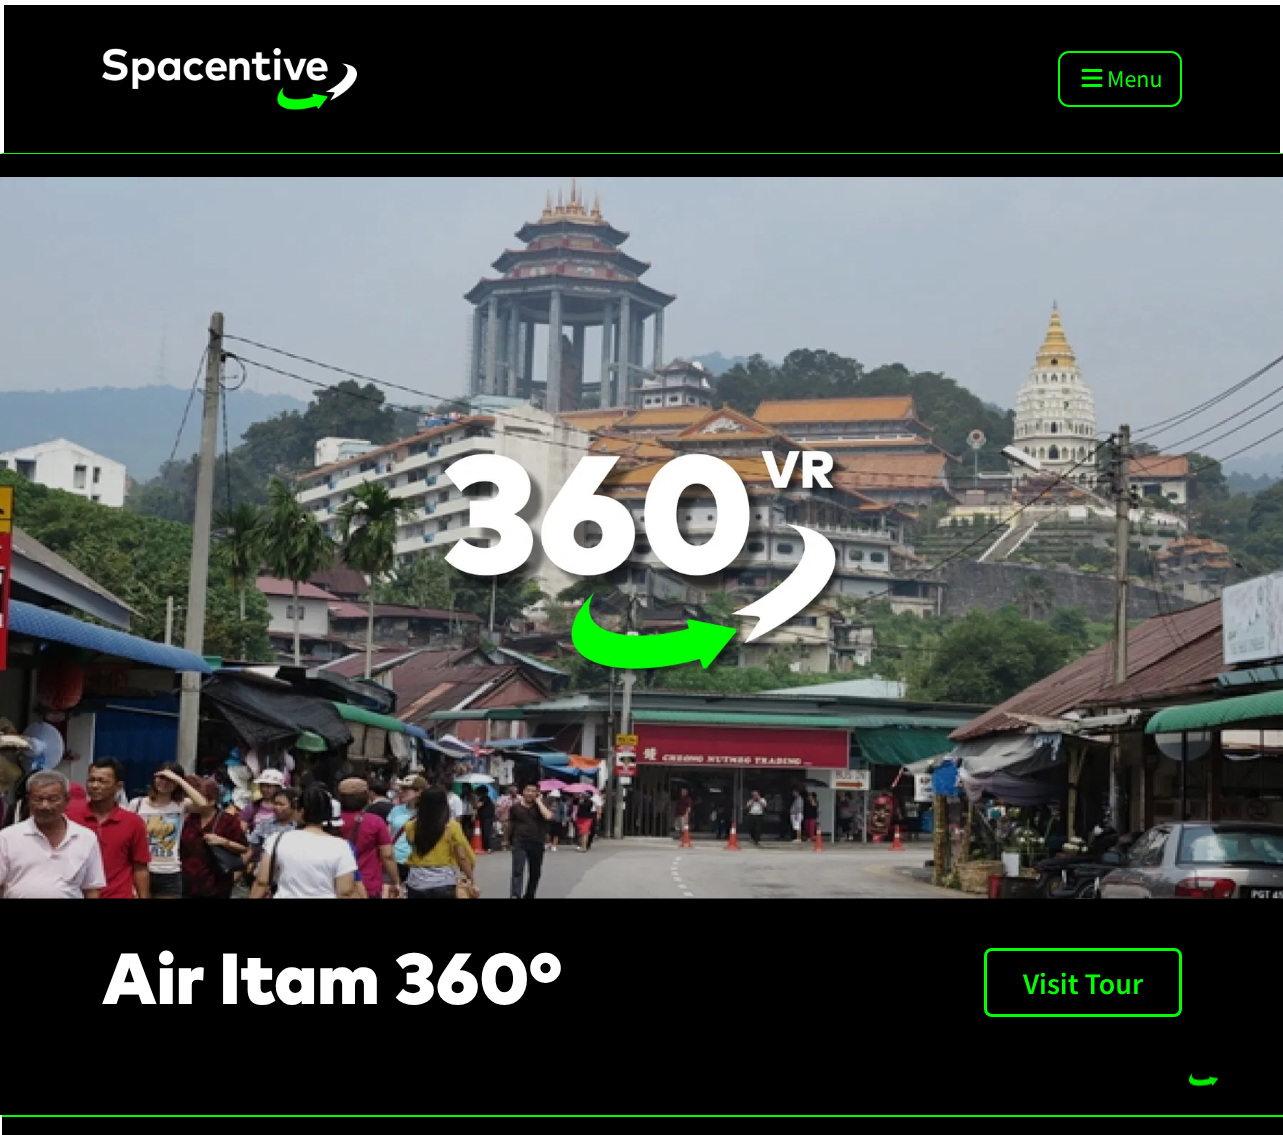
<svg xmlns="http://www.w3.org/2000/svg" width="1283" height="1135">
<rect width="100%" height="100%" fill="#000"/>
<rect width="1283" height="5" fill="#fff"/>
<path d="M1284 0v154l-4-1v-149z" fill="#fff"/>
<path d="M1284 154h-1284l4-1h1276z" fill="#00ff01"/>
<path d="M0 154v-154l4 4v149z" fill="#fff"/>
<image x="102" y="48" width="255" height="62" href="media/1.png"/>
<rect x="1059" y="52" width="122" height="54" rx="10" fill="none" stroke="#00ff01" stroke-width="2"/>
<image x="1081" y="69" width="22" height="18" href="media/2.png"/>
<text x="1107" y="87" style="font-family:Source Sans Pro;font-size:24px;fill:#00ff01">Menu</text>
<image x="0" y="177" width="1283" height="722" href="media/3.png"/>
<text x="102" y="1004" style="font-family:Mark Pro;font-size:72px;font-weight:900;fill:#fff">Air Itam 360°</text>
<rect x="985.5" y="949.5" width="195" height="66" rx="6.5" fill="none" stroke="#00ff01" stroke-width="3"/>
<text x="1023" y="994" style="font-family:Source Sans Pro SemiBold;font-size:30px;font-weight:600;fill:#00ff01">Visit Tour</text>
<rect y="1115" width="1283" height="2" fill="#00ff01"/>
<rect y="1115" width="2" height="20" fill="#fff"/>
<image x="1188" y="1072" width="30" height="15" href="media/4.png"/>
</svg>
